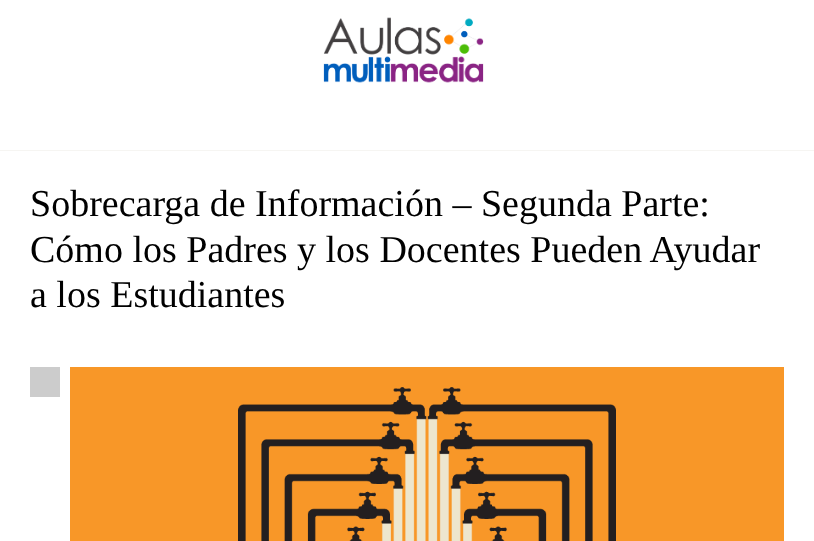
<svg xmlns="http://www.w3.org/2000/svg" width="814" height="541">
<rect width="100%" height="100%" fill="#fff"/>
<image x="323" y="17" width="161" height="66" href="media/1.png"/>
<rect y="150" width="814" height="1" fill="#f6f5f2"/>
<text x="30" y="216" style="font-family:Liberation Serif;font-size:38px;fill:#000">Sobrecarga de Información – Segunda Parte:</text>
<text x="30" y="262" style="font-family:Liberation Serif;font-size:38px;fill:#000">Cómo los Padres y los Docentes Pueden Ayudar</text>
<text x="30" y="307" style="font-family:Liberation Serif;font-size:38px;fill:#000">a los Estudiantes</text>
<rect x="30" y="367" width="30" height="30" fill="#ccc"/>
<image x="70" y="367" width="714" height="174" href="media/2.png"/>
</svg>
